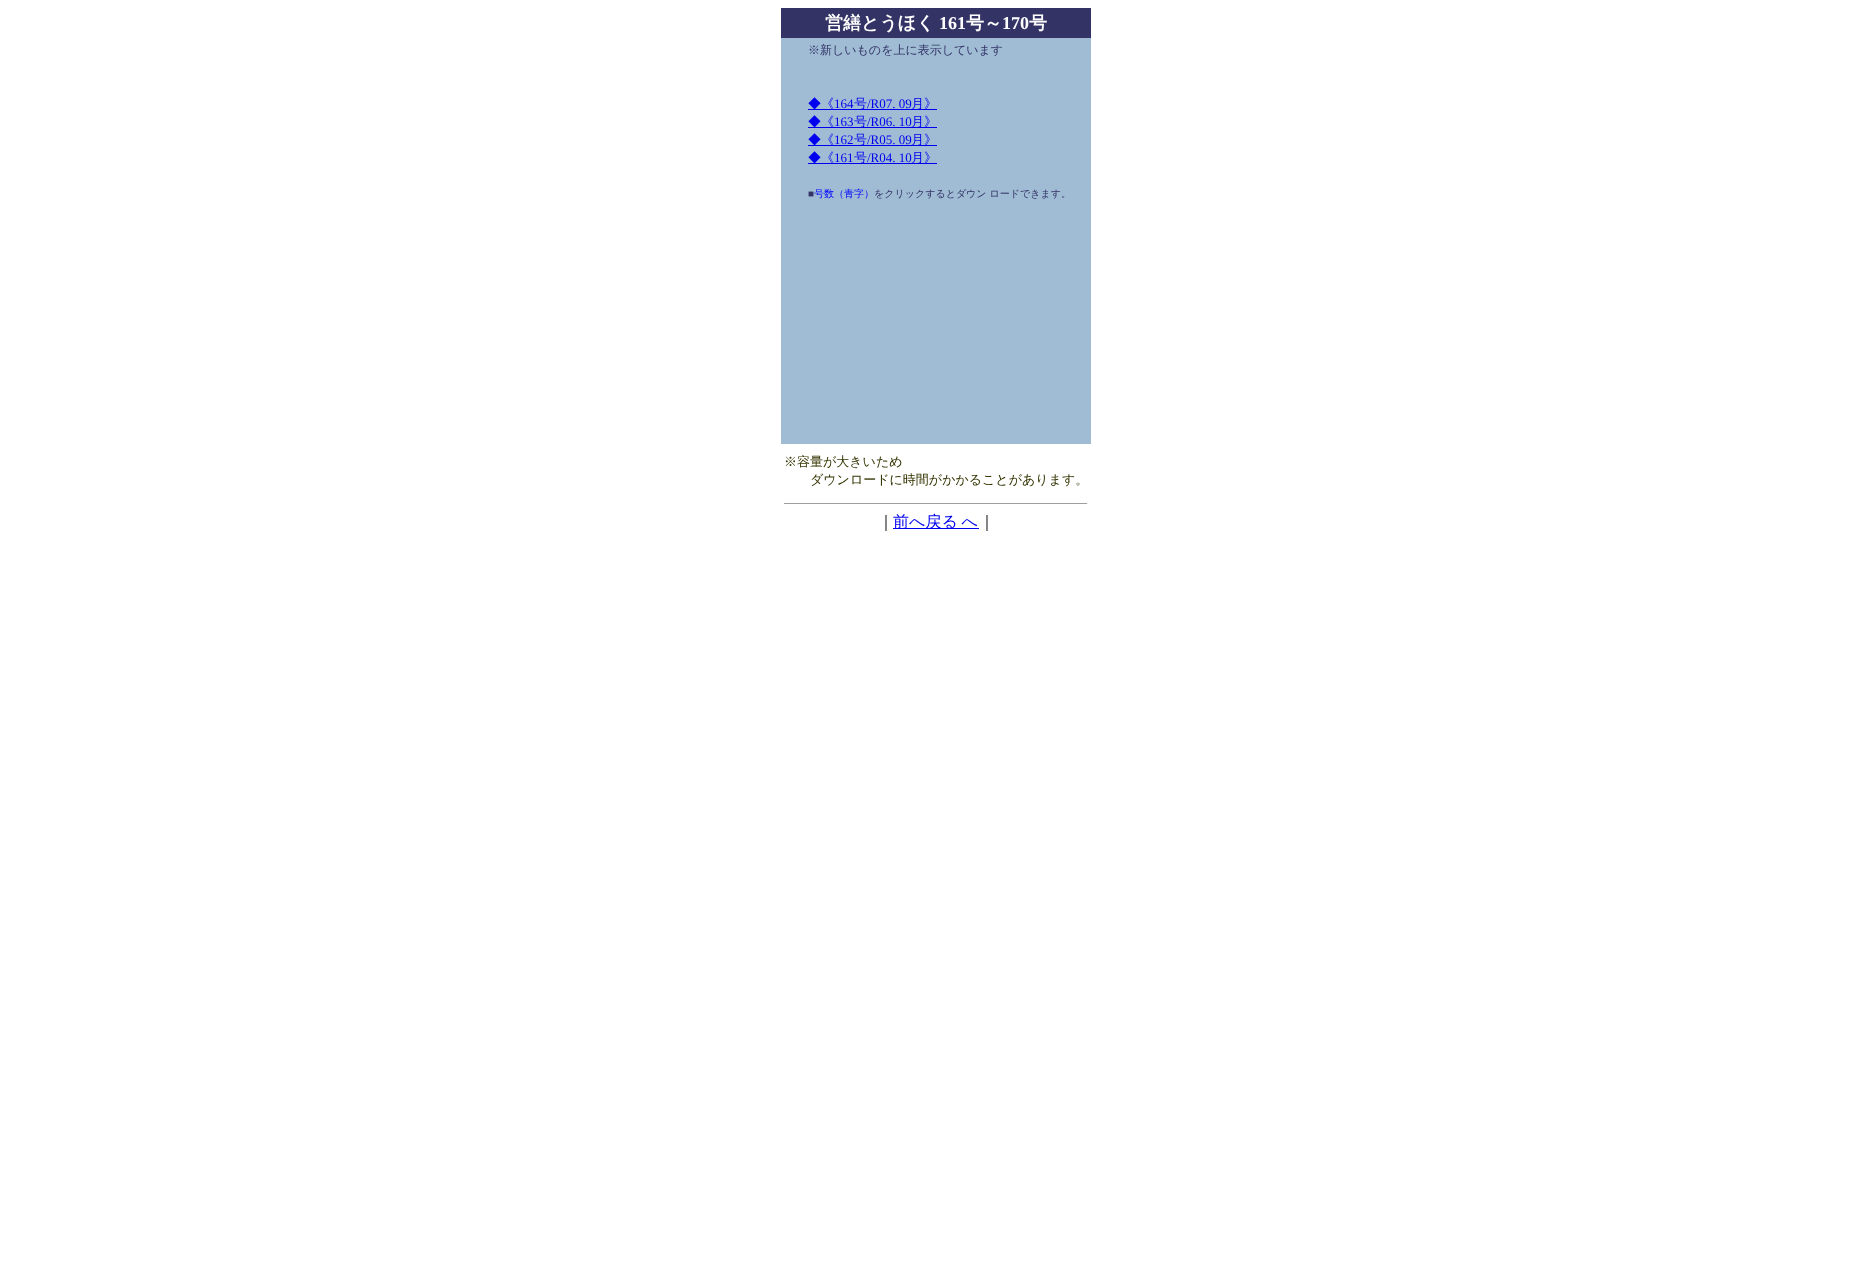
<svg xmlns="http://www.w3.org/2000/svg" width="1872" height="1278">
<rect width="100%" height="100%" fill="#fff"/>
<rect x="781" y="8" width="310" height="30" fill="#336"/>
<text x="825" y="29" style="font-family:WenQuanYi Zen Hei;font-size:18px;font-weight:bold;fill:#fff">営繕とうほく</text>
<text x="939" y="29" style="font-family:Liberation Serif;font-size:18px;font-weight:bold;fill:#fff">161</text>
<text x="966" y="29" style="font-family:WenQuanYi Zen Hei;font-size:18px;font-weight:bold;fill:#fff">号～</text>
<text x="1002" y="29" style="font-family:Liberation Serif;font-size:18px;font-weight:bold;fill:#fff">170</text>
<text x="1029" y="29" style="font-family:WenQuanYi Zen Hei;font-size:18px;font-weight:bold;fill:#fff">号</text>
<rect x="781" y="38" width="310" height="406" fill="#9fbcd4"/>
<text x="808" y="54" style="font-family:WenQuanYi Zen Hei;font-size:12px;font-weight:500;fill:#336">※新しいものを上に表示しています</text>
<rect x="808" y="109" width="129" height="1" fill="#00e"/>
<text x="808" y="108" style="font-family:WenQuanYi Zen Hei;font-size:13px;font-weight:500;fill:#00e">◆《</text>
<text x="834" y="108" style="font-family:Liberation Serif;font-size:13px;fill:#00e">164</text>
<text x="854" y="108" style="font-family:WenQuanYi Zen Hei;font-size:13px;font-weight:500;fill:#00e">号</text>
<text x="867" y="108" style="font-family:Liberation Serif;font-size:13px;fill:#00e">/R07. 09</text>
<text x="911" y="108" style="font-family:WenQuanYi Zen Hei;font-size:13px;font-weight:500;fill:#00e">月》</text>
<rect x="808" y="127" width="129" height="1" fill="#00e"/>
<text x="808" y="126" style="font-family:WenQuanYi Zen Hei;font-size:13px;font-weight:500;fill:#00e">◆《</text>
<text x="834" y="126" style="font-family:Liberation Serif;font-size:13px;fill:#00e">163</text>
<text x="854" y="126" style="font-family:WenQuanYi Zen Hei;font-size:13px;font-weight:500;fill:#00e">号</text>
<text x="867" y="126" style="font-family:Liberation Serif;font-size:13px;fill:#00e">/R06. 10</text>
<text x="911" y="126" style="font-family:WenQuanYi Zen Hei;font-size:13px;font-weight:500;fill:#00e">月》</text>
<rect x="808" y="145" width="129" height="1" fill="#00e"/>
<text x="808" y="144" style="font-family:WenQuanYi Zen Hei;font-size:13px;font-weight:500;fill:#00e">◆《</text>
<text x="834" y="144" style="font-family:Liberation Serif;font-size:13px;fill:#00e">162</text>
<text x="854" y="144" style="font-family:WenQuanYi Zen Hei;font-size:13px;font-weight:500;fill:#00e">号</text>
<text x="867" y="144" style="font-family:Liberation Serif;font-size:13px;fill:#00e">/R05. 09</text>
<text x="911" y="144" style="font-family:WenQuanYi Zen Hei;font-size:13px;font-weight:500;fill:#00e">月》</text>
<rect x="808" y="163" width="129" height="1" fill="#00e"/>
<text x="808" y="162" style="font-family:WenQuanYi Zen Hei;font-size:13px;font-weight:500;fill:#00e">◆《</text>
<text x="834" y="162" style="font-family:Liberation Serif;font-size:13px;fill:#00e">161</text>
<text x="854" y="162" style="font-family:WenQuanYi Zen Hei;font-size:13px;font-weight:500;fill:#00e">号</text>
<text x="867" y="162" style="font-family:Liberation Serif;font-size:13px;fill:#00e">/R04. 10</text>
<text x="911" y="162" style="font-family:WenQuanYi Zen Hei;font-size:13px;font-weight:500;fill:#00e">月》</text>
<text x="808" y="197" style="font-family:Liberation Serif;font-size:10px;fill:#336">■</text>
<text x="814" y="197" style="font-family:WenQuanYi Zen Hei;font-size:10px;font-weight:500;fill:#00f">号数（青字）</text>
<text x="874" y="197" style="font-family:WenQuanYi Zen Hei;font-size:10px;font-weight:500;fill:#336">をクリックするとダウン ロードできます。</text>
<text x="784" y="466" style="font-family:WenQuanYi Zen Hei;font-size:13px;font-weight:500;fill:#330">※容量が大きいため</text>
<text x="810" y="484" style="font-family:WenQuanYi Zen Hei;font-size:13px;font-weight:500;fill:#330">ダウンロードに時間がかかることがあります。</text>
<rect x="784" y="503" width="304" height="1" fill="#9f9f9f"/>
<rect x="1087" y="503" width="1" height="1" fill="#eee"/>
<text x="878" y="527" style="font-family:WenQuanYi Zen Hei;font-size:16px;font-weight:500;fill:#000">｜</text>
<rect x="893" y="528" width="86" height="1" fill="#00e"/>
<text x="893" y="527" word-spacing="-1" style="font-family:WenQuanYi Zen Hei;font-size:16px;font-weight:500;fill:#00e">前へ戻る へ</text>
<text x="979" y="527" style="font-family:WenQuanYi Zen Hei;font-size:16px;font-weight:500;fill:#000">｜</text>
</svg>
